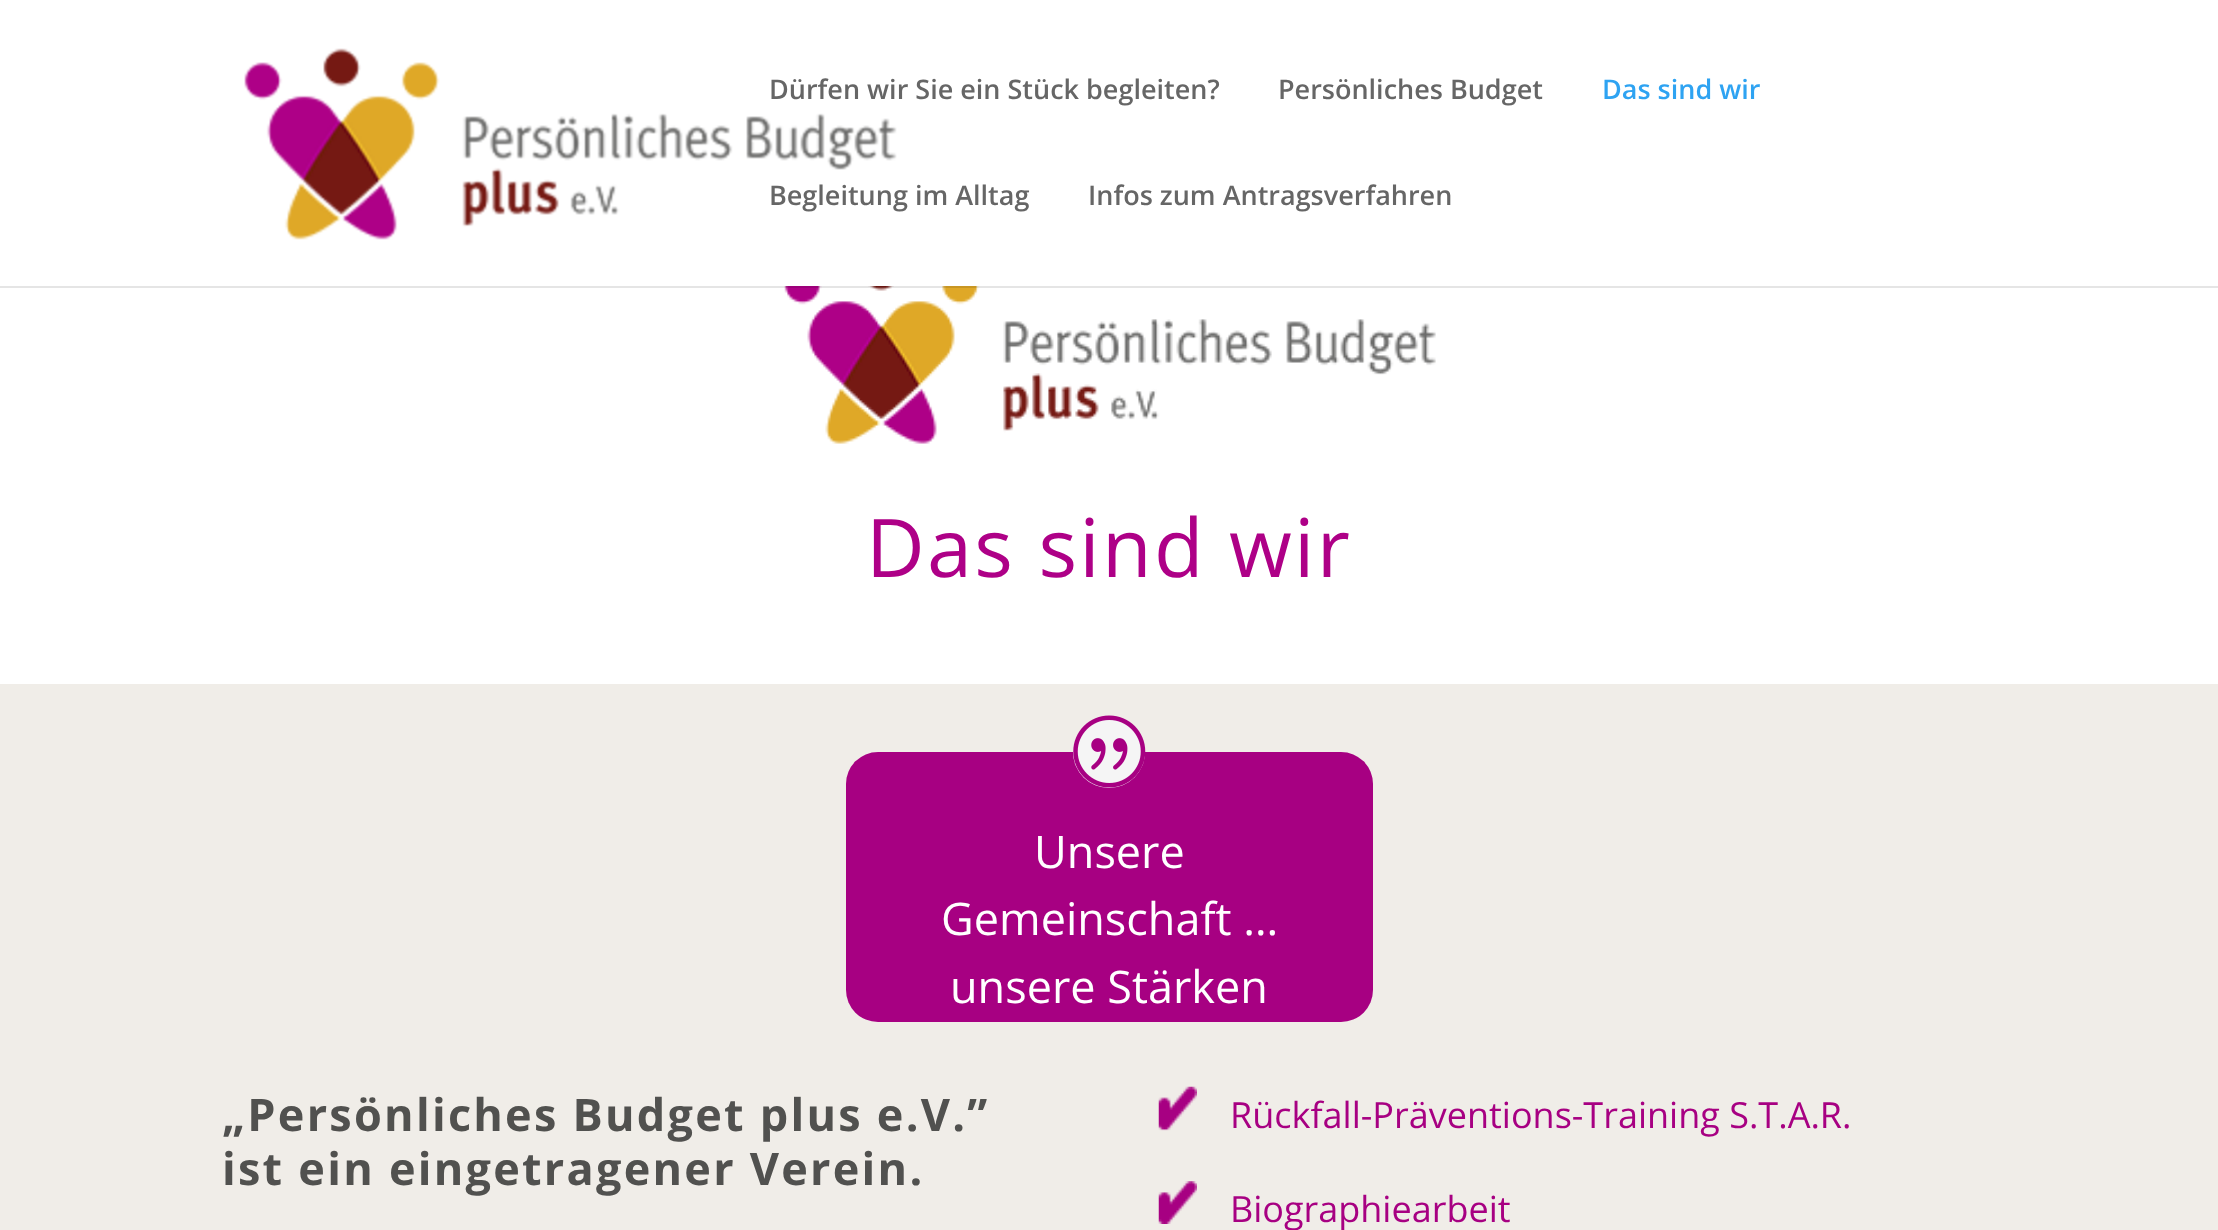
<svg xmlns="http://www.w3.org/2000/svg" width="2218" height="1230">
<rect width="100%" height="100%" fill="#fff"/>
<image x="784" y="286" width="652" height="158" href="media/2.png"/>
<path d="M0 286v2h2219v-286h-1v284z" fill="#0000001a"/>
<image x="244" y="48" width="653" height="192" href="media/1.png"/>
<text x="769" y="99" style="font-family:Open Sans;font-size:27px;font-weight:600;fill:#666">Dürfen wir Sie ein Stück begleiten?</text>
<text x="1278" y="99" style="font-family:Open Sans;font-size:27px;font-weight:600;fill:#666">Persönliches Budget</text>
<text x="1602" y="99" style="font-family:Open Sans;font-size:27px;font-weight:600;fill:#2ea3f2">Das sind wir</text>
<text x="769" y="205" style="font-family:Open Sans;font-size:27px;font-weight:600;fill:#666">Begleitung im Alltag</text>
<text x="1088" y="205" style="font-family:Open Sans;font-size:27px;font-weight:600;fill:#666">Infos zum Antragsverfahren</text>
<text x="866" y="577" style="font-family:Open Sans;font-size:81px;letter-spacing:2.25px;fill:#ae0087">Das sind wir</text>
<rect y="684" width="2218" height="546" fill="#f0ede8"/>
<rect x="846" y="752" width="527" height="270" rx="32" fill="#a70082"/>
<circle cx="1109" cy="752" r="36" fill="#f5f5f5"/>
<image x="1073" y="715" width="73" height="73" href="media/3.png"/>
<text x="1034" y="868" style="font-family:Open Sans;font-size:45px;fill:#fff">Unsere</text>
<text x="941" y="935" style="font-family:Open Sans;font-size:45px;fill:#fff">Gemeinschaft …</text>
<text x="950" y="1003" style="font-family:Open Sans;font-size:45px;fill:#fff">unsere Stärken</text>
<text x="222" y="1131" style="font-family:Open Sans;font-size:45px;font-weight:bold;letter-spacing:2.25px;fill:#51514f">„Persönliches Budget plus e.V.”</text>
<text x="222" y="1185" style="font-family:Open Sans;font-size:45px;font-weight:bold;letter-spacing:2.25px;fill:#51514f">ist ein eingetragener Verein.</text>
<image x="1158" y="1086" width="39" height="45" href="media/4.png"/>
<text x="1230" y="1128" style="font-family:Open Sans;font-size:36px;fill:#a70082">Rückfall-Präventions-Training S.T.A.R.</text>
<image x="1158" y="1181" width="39" height="43" href="media/5.png"/>
<text x="1230" y="1222" style="font-family:Open Sans;font-size:36px;fill:#a70082">Biographiearbeit</text>
</svg>
